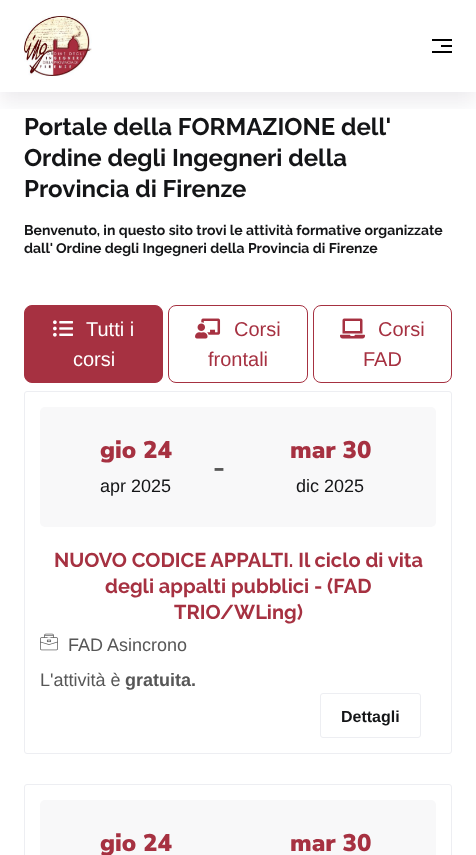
<svg xmlns="http://www.w3.org/2000/svg" width="476" height="855">
<defs>
<clipPath id="clip1"><rect x="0" y="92" width="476" height="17"/></clipPath>
</defs>
<rect width="100%" height="100%" fill="#fff"/>
<g clip-path="url(#clip1)">
<rect y="10" width="476" height="92" fill="#08002a14" filter="blur(10px)"/>
</g>
<image x="24" y="16" width="68" height="60" href="media/1.png"/>
<rect x="432" y="39" width="20" height="2" fill="#000"/>
<rect x="441" y="45" width="11" height="2" fill="#000"/>
<rect x="432" y="51" width="20" height="2" fill="#000"/>
<text x="24" y="135" style="font-family:Raleway;font-size:24px;font-weight:bold;fill:#141517">Portale della FORMAZIONE dell'</text>
<text x="24" y="166" style="font-family:Raleway;font-size:24px;font-weight:bold;fill:#141517">Ordine degli Ingegneri della</text>
<text x="24" y="197" style="font-family:Raleway;font-size:24px;font-weight:bold;fill:#141517">Provincia di Firenze</text>
<text x="24" y="235" style="font-family:Raleway;font-size:14px;font-weight:bold;fill:#141517">Benvenuto, in questo sito trovi le attività formative organizzate</text>
<text x="24" y="253" style="font-family:Raleway;font-size:14px;font-weight:bold;fill:#141517">dall' Ordine degli Ingegneri della Provincia di Firenze</text>
<rect x="24.5" y="305.5" width="138" height="77" rx="7.5" fill="#a63141" stroke="#a63141"/>
<image x="53" y="320" width="20" height="17" href="media/2.png"/>
<text x="86" y="336" style="font-family:Liberation Sans;font-size:20px;fill:#fff">Tutti i</text>
<text x="73" y="366" style="font-family:Liberation Sans;font-size:20px;fill:#fff">corsi</text>
<rect x="168.5" y="305.5" width="139" height="77" rx="7.5" fill="none" stroke="#a63141"/>
<image x="195" y="318" width="26" height="21" href="media/3.png"/>
<text x="234" y="336" style="font-family:Liberation Sans;font-size:20px;fill:#a63141">Corsi</text>
<text x="208" y="366" style="font-family:Liberation Sans;font-size:20px;fill:#a63141">frontali</text>
<rect x="313.5" y="305.5" width="138" height="77" rx="7.5" fill="none" stroke="#a63141"/>
<image x="340" y="318" width="25" height="21" href="media/4.png"/>
<text x="378" y="336" style="font-family:Liberation Sans;font-size:20px;fill:#a63141">Corsi</text>
<text x="363" y="366" style="font-family:Liberation Sans;font-size:20px;fill:#a63141">FAD</text>
<rect x="24.5" y="391.5" width="427" height="362" rx="2.5" fill="none" stroke="#edeef2"/>
<rect x="40" y="407" width="396" height="120" rx="5" fill="#f8f8f9"/>
<text x="100" y="458" style="font-family:Nunito Sans;font-size:24px;font-weight:900;fill:#a63141">gio 24</text>
<text x="100" y="492" style="font-family:Liberation Sans;font-size:18px;fill:#141517">apr 2025</text>
<text x="213" y="479" style="font-family:Liberation Sans;font-size:36px;fill:#575757">-</text>
<text x="290" y="458" style="font-family:Nunito Sans;font-size:24px;font-weight:900;fill:#a63141">mar 30</text>
<text x="296" y="492" style="font-family:Liberation Sans;font-size:18px;fill:#141517">dic 2025</text>
<text x="54" y="567" style="font-family:Raleway;font-size:20px;font-weight:bold;fill:#a63141">NUOVO CODICE APPALTI. Il ciclo di vita</text>
<text x="105" y="593" style="font-family:Raleway;font-size:20px;font-weight:bold;fill:#a63141">degli appalti pubblici - (FAD</text>
<text x="174" y="619" style="font-family:Raleway;font-size:20px;font-weight:bold;fill:#a63141">TRIO/WLing)</text>
<image x="40" y="633" width="18" height="18" href="media/5.png"/>
<text x="68" y="651" style="font-family:Liberation Sans;font-size:18px;fill:#575757">FAD Asincrono</text>
<text x="40" y="686" style="font-family:Liberation Sans;font-size:18px;fill:#575757">L'attività è</text>
<text x="125" y="686" style="font-family:Liberation Sans;font-size:18px;font-weight:bold;fill:#575757">gratuita.</text>
<rect x="320.5" y="693.5" width="100" height="44" rx="2.5" fill="none" stroke="#edeef2"/>
<text x="341" y="722" style="font-family:Liberation Sans;font-size:16px;font-weight:bold;fill:#141517">Dettagli</text>
<rect x="24.5" y="784.5" width="427" height="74" rx="2.5" fill="none" stroke="#edeef2"/>
<rect x="40" y="800" width="396" height="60" rx="5" fill="#f8f8f9"/>
<text x="100" y="851" style="font-family:Nunito Sans;font-size:24px;font-weight:900;fill:#a63141">gio 24</text>
<text x="290" y="851" style="font-family:Nunito Sans;font-size:24px;font-weight:900;fill:#a63141">mar 30</text>
</svg>
